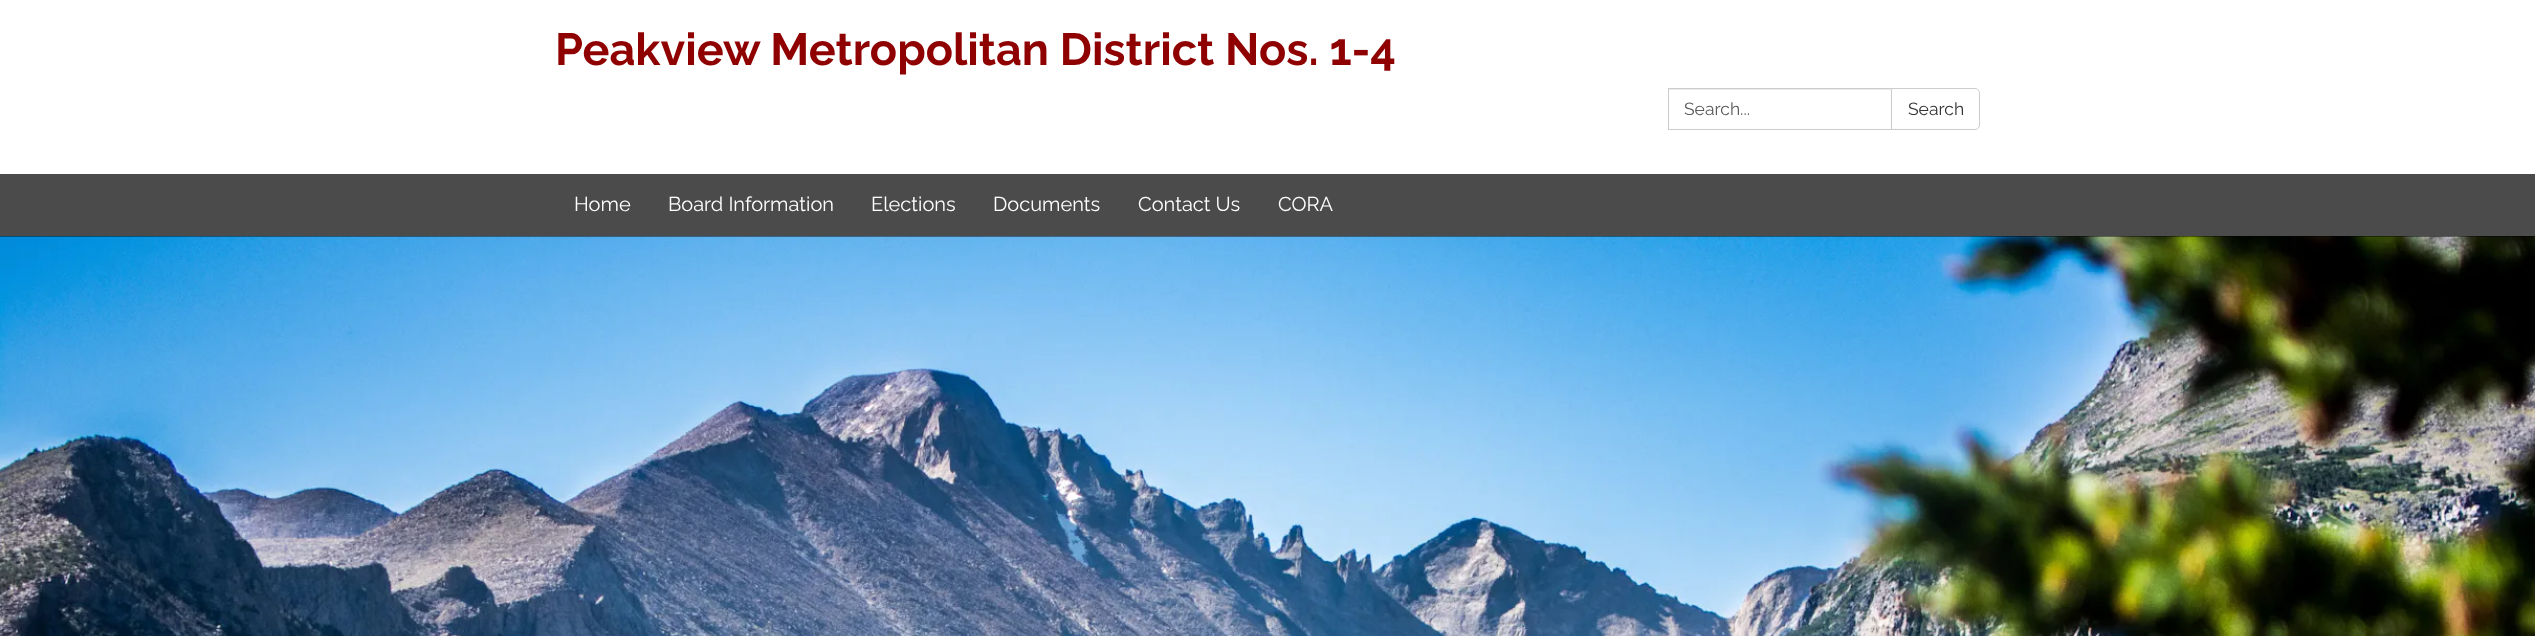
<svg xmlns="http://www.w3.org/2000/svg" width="2535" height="636">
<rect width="100%" height="100%" fill="#4b4b4b"/>
<rect width="2535" height="174" fill="#fff"/>
<text x="555" y="65" style="font-family:Raleway;font-size:45px;font-weight:bold;fill:#8f0000">Peakview Metropolitan District Nos. 1-4</text>
<rect x="1669" y="89" width="222" height="1" fill="#ececec"/>
<rect x="1668.5" y="88.5" width="224" height="41" fill="none" stroke="#ccc"/>
<text x="1684" y="115" style="font-family:Raleway;font-size:17.5px;fill:#5b5b5b">Search...</text>
<path d="M1891.5 88.5h83.5c2.5 0 4.5 2 4.5 4.5v32c0 2.5-2 4.5-4.5 4.5h-83.5z" fill="#fff" stroke="#ccc"/>
<text x="1908" y="115" style="font-family:Raleway;font-size:17.5px;fill:#333">Search</text>
<text x="574" y="211" style="font-family:Raleway;font-size:20px;fill:#fff">Home</text>
<text x="668" y="211" style="font-family:Raleway;font-size:20px;fill:#fff">Board Information</text>
<text x="871" y="211" style="font-family:Raleway;font-size:20px;fill:#fff">Elections</text>
<text x="993" y="211" style="font-family:Raleway;font-size:20px;fill:#fff">Documents</text>
<text x="1138" y="211" style="font-family:Raleway;font-size:20px;fill:#fff">Contact Us</text>
<text x="1278" y="211" style="font-family:Raleway;font-size:20px;fill:#fff">CORA</text>
<rect y="236" width="2535" height="1" fill="#000"/>
<image x="0" y="236" width="2535" height="400" href="media/1.png"/>
</svg>
